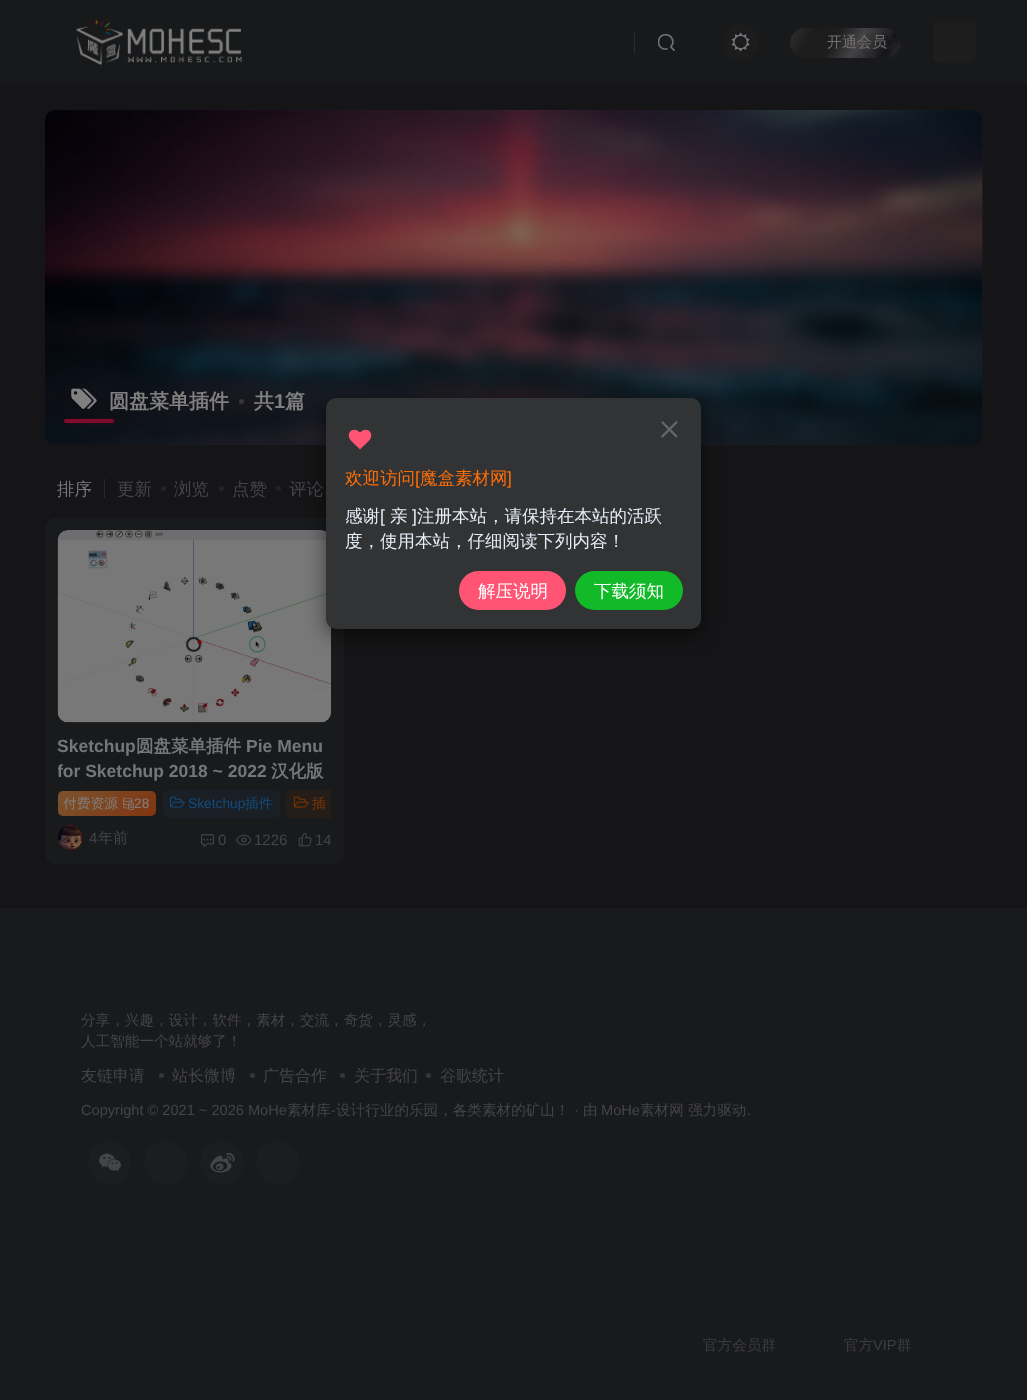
<svg xmlns="http://www.w3.org/2000/svg" width="1027" height="1400">
<defs>
<linearGradient id="g1" gradientUnits="userSpaceOnUse" x1="894" y1="70" x2="797" y2="15"><stop offset="0" stop-color="#262729"/><stop offset="0.15" stop-color="#151519"/><stop offset="0.4" stop-color="#434345"/><stop offset="0.6" stop-color="#1d1d1e"/><stop offset="0.8" stop-color="#1d1c1c"/><stop offset="1" stop-color="#2f3031"/></linearGradient>
<linearGradient id="g2" gradientUnits="userSpaceOnUse" x1="514" y1="445" x2="514" y2="110"><stop offset="0.16" stop-color="#0f1519" stop-opacity="0.4"/><stop offset="0.42" stop-color="#0f1519" stop-opacity="0"/></linearGradient>
<clipPath id="clip1"><rect x="58" y="735" width="273" height="49"/></clipPath>
<linearGradient id="g3" gradientUnits="userSpaceOnUse" x1="76" y1="773" x2="138" y2="835"><stop offset="0.1" stop-color="#7b502a"/><stop offset="1" stop-color="#803511"/></linearGradient>
</defs>
<rect width="100%" height="100%" fill="#151517"/>
<rect width="1027" height="85" fill="#18191a"/>
<image x="76" y="20" width="166" height="45" href="media/1.png"/>
<rect x="634" y="33" width="1" height="21" fill="#2a2c2d"/>
<image x="658" y="34" width="17" height="17" href="media/2.png"/>
<circle cx="741" cy="42" r="18" fill="#1c1c1d"/>
<image x="731" y="32" width="19" height="20" href="media/3.png"/>
<rect x="790" y="28" width="111" height="30" rx="15" fill="url(#g1)"/>
<rect x="805" y="31" width="1" height="1" fill="#292423"/>
<text x="827" y="47" style="font-family:WenQuanYi Zen Hei;font-size:15px;font-weight:500;fill:#767070">开通会员</text>
<image x="853" y="30" width="48" height="28" href="media/4.png"/>
<rect x="933" y="21" width="43" height="42" rx="5" fill="#1d1d1e"/>
<rect x="45" y="110" width="938" height="335" rx="10" fill="#191a1b"/>
<image x="45" y="110" width="938" height="335" href="media/5.png"/>
<rect x="45" y="110" width="938" height="335" rx="10" fill="url(#g2)"/>
<image x="71" y="388" width="26" height="21" href="media/6.png"/>
<text x="109" y="408" style="font-family:WenQuanYi Zen Hei;font-size:20px;font-weight:bold;fill:#808080">圆盘菜单插件</text>
<circle cx="241.5" cy="401.5" r="2.5" fill="#37373c"/>
<text x="254" y="408" style="font-family:WenQuanYi Zen Hei;font-size:20px;font-weight:bold;fill:#808080">共</text>
<text x="274" y="408" style="font-family:Liberation Sans;font-size:20px;font-weight:bold;fill:#808080">1</text>
<text x="285" y="408" style="font-family:WenQuanYi Zen Hei;font-size:20px;font-weight:bold;fill:#808080">篇</text>
<rect x="66" y="421" width="48" height="1" rx="0.5" fill="#800c2b" filter="blur(2px)"/>
<rect x="64" y="419" width="50" height="4" rx="2" fill="#800c2b"/>
<text x="57" y="495" style="font-family:WenQuanYi Zen Hei;font-size:17.5px;font-weight:500;fill:#73777c">排序</text>
<rect x="104" y="479" width="1" height="19" fill="#28292b"/>
<text x="117" y="495" style="font-family:WenQuanYi Zen Hei;font-size:17.5px;font-weight:500;fill:#444548">更新</text>
<circle cx="163.5" cy="488.5" r="2.5" fill="#232425"/>
<text x="174" y="495" style="font-family:WenQuanYi Zen Hei;font-size:17.5px;font-weight:500;fill:#444548">浏览</text>
<circle cx="221.5" cy="488.5" r="2.5" fill="#232425"/>
<text x="232" y="495" style="font-family:WenQuanYi Zen Hei;font-size:17.5px;font-weight:500;fill:#444548">点赞</text>
<circle cx="278.5" cy="488.5" r="2.5" fill="#232425"/>
<text x="289" y="495" style="font-family:WenQuanYi Zen Hei;font-size:17.5px;font-weight:500;fill:#444548">评论</text>
<rect x="45" y="518" width="299" height="346" rx="10" fill="#191a1b"/>
<image x="57" y="530" width="274" height="193" href="media/7.png"/>
<text x="57" y="752" style="font-family:Liberation Sans;font-size:17.5px;font-weight:bold;fill:#73777c">Sketchup</text>
<text x="136" y="752" style="font-family:WenQuanYi Zen Hei;font-size:17.5px;font-weight:bold;fill:#73777c">圆盘菜单插件</text>
<text x="246" y="752" style="font-family:Liberation Sans;font-size:17.5px;font-weight:bold;fill:#73777c">Pie Menu</text>
<g clip-path="url(#clip1)">
<text x="57" y="777" style="font-family:Liberation Sans;font-size:17.5px;font-weight:bold;fill:#73777c">for Sketchup 2018 ~ 2022</text>
</g>
<text x="271" y="777" style="font-family:WenQuanYi Zen Hei;font-size:17.5px;font-weight:bold;fill:#73777c">汉化版</text>
<rect x="58" y="791" width="98" height="25" rx="5" fill="url(#g3)"/>
<text x="63" y="808" style="font-family:WenQuanYi Zen Hei;font-size:13.75px;font-weight:500;fill:#808080">付费资源</text>
<image x="123" y="798" width="11" height="12" href="media/8.png"/>
<text x="134" y="808" style="font-family:Liberation Sans;font-size:13.75px;fill:#808080">28</text>
<rect x="163" y="790" width="117" height="28" rx="5" fill="#191f24"/>
<image x="170" y="796" width="15" height="12" href="media/9.png"/>
<text x="188" y="808" style="font-family:Liberation Sans;font-size:13.75px;fill:#154c7c">Sketchup</text>
<text x="245" y="808" style="font-family:WenQuanYi Zen Hei;font-size:13.75px;font-weight:500;fill:#154c7c">插件</text>
<path d="M291 790h40v28h-40c-3 0-5-2-5-5v-18c0-3 2-5 5-5z" fill="#241d18"/>
<image x="293" y="796" width="16" height="12" href="media/10.png"/>
<text x="312" y="808" style="font-family:WenQuanYi Zen Hei;font-size:13.75px;font-weight:500;fill:#803803">插</text>
<image x="57" y="825" width="26" height="25" href="media/11.png"/>
<text x="89" y="843" style="font-family:Liberation Sans;font-size:15px;fill:#444548">4</text>
<text x="98" y="843" style="font-family:WenQuanYi Zen Hei;font-size:15px;font-weight:500;fill:#444548">年前</text>
<image x="200" y="834" width="15" height="13" href="media/12.png"/>
<text x="218" y="845" style="font-family:Liberation Sans;font-size:15px;fill:#444548">0</text>
<image x="236" y="834" width="15" height="12" href="media/13.png"/>
<text x="254" y="845" style="font-family:Liberation Sans;font-size:15px;fill:#444548">1226</text>
<image x="298" y="833" width="14" height="14" href="media/14.png"/>
<text x="315" y="845" style="font-family:Liberation Sans;font-size:15px;fill:#444548">14</text>
<rect x="326" y="404" width="375" height="231" rx="10" fill="#00000080" filter="blur(9.5px)"/>
<rect x="326" y="398" width="375" height="231" rx="10" fill="#323335"/>
<image x="348" y="429" width="24" height="20" href="media/15.png"/>
<image x="661" y="421" width="17" height="17" href="media/16.png"/>
<text x="345" y="484" style="font-family:WenQuanYi Zen Hei;font-size:17.5px;font-weight:500;fill:#ff6f06">欢迎访问</text>
<text x="415" y="484" style="font-family:Liberation Sans;font-size:17.5px;fill:#ff6f06">[</text>
<text x="420" y="484" style="font-family:WenQuanYi Zen Hei;font-size:17.5px;font-weight:500;fill:#ff6f06">魔盒素材网</text>
<text x="507" y="484" style="font-family:Liberation Sans;font-size:17.5px;fill:#ff6f06">]</text>
<text x="345" y="522" style="font-family:WenQuanYi Zen Hei;font-size:17.5px;font-weight:500;fill:#e5eef7">感谢</text>
<text x="380" y="522" style="font-family:Liberation Sans;font-size:17.5px;fill:#e5eef7">[</text>
<text x="390" y="522" style="font-family:WenQuanYi Zen Hei;font-size:17.5px;font-weight:500;fill:#e5eef7">亲</text>
<text x="412" y="522" style="font-family:Liberation Sans;font-size:17.5px;fill:#e5eef7">]</text>
<text x="417" y="522" style="font-family:WenQuanYi Zen Hei;font-size:17.5px;font-weight:500;fill:#e5eef7">注册本站，请保持在本站的活跃</text>
<text x="345" y="547" style="font-family:WenQuanYi Zen Hei;font-size:17.5px;font-weight:500;fill:#e5eef7">度，使用本站，仔细阅读下列内容！</text>
<rect x="459" y="571" width="107" height="39" rx="19.5" fill="#ff5473"/>
<text x="478" y="597" style="font-family:WenQuanYi Zen Hei;font-size:17.5px;font-weight:500;fill:#fff">解压说明</text>
<rect x="575" y="571" width="108" height="39" rx="19.5" fill="#12b928"/>
<text x="594" y="597" style="font-family:WenQuanYi Zen Hei;font-size:17.5px;font-weight:500;fill:#fff">下载须知</text>
<rect y="908" width="1027" height="492" fill="#191a1b"/>
<text x="81" y="1025" style="font-family:WenQuanYi Zen Hei;font-size:14.6px;font-weight:500;fill:#444548">分享，兴趣，设计，软件，素材，交流，奇货，灵感，</text>
<text x="81" y="1046" style="font-family:WenQuanYi Zen Hei;font-size:14.6px;font-weight:500;fill:#444548">人工智能一个站就够了！</text>
<text x="81" y="1081" style="font-family:WenQuanYi Zen Hei;font-size:16px;font-weight:500;fill:#444548">友链申请</text>
<circle cx="161.5" cy="1075.5" r="2.5" fill="#343638"/>
<text x="172" y="1081" style="font-family:WenQuanYi Zen Hei;font-size:16px;font-weight:500;fill:#444548">站长微博</text>
<circle cx="252.5" cy="1075.5" r="2.5" fill="#343638"/>
<text x="263" y="1081" style="font-family:WenQuanYi Zen Hei;font-size:16px;font-weight:500;fill:#444548">广告合作</text>
<circle cx="342.5" cy="1075.5" r="2.5" fill="#343638"/>
<text x="354" y="1081" style="font-family:WenQuanYi Zen Hei;font-size:16px;font-weight:500;fill:#444548">关于我们</text>
<circle cx="428.5" cy="1075.5" r="2.5" fill="#343638"/>
<text x="440" y="1081" style="font-family:WenQuanYi Zen Hei;font-size:16px;font-weight:500;fill:#444548">谷歌统计</text>
<text x="81" y="1115" style="font-family:Liberation Sans;font-size:14.6px;fill:#444548">Copyright © 2021 ~ 2026 MoHe</text>
<text x="287" y="1115" style="font-family:WenQuanYi Zen Hei;font-size:14.6px;font-weight:500;fill:#444548">素材库</text>
<text x="331" y="1115" style="font-family:Liberation Sans;font-size:14.6px;fill:#444548">-</text>
<text x="336" y="1115" style="font-family:WenQuanYi Zen Hei;font-size:14.6px;font-weight:500;fill:#444548">设计行业的乐园，各类素材的矿山！</text>
<text x="574" y="1115" style="font-family:Liberation Sans;font-size:14.6px;fill:#444548">·</text>
<text x="583" y="1115" style="font-family:WenQuanYi Zen Hei;font-size:14.6px;font-weight:500;fill:#444548">由</text>
<text x="601" y="1115" style="font-family:Liberation Sans;font-size:14.6px;fill:#444548">MoHe</text>
<text x="640" y="1115" style="font-family:WenQuanYi Zen Hei;font-size:14.6px;font-weight:500;fill:#444548">素材网</text>
<text x="688" y="1115" style="font-family:WenQuanYi Zen Hei;font-size:14.6px;font-weight:500;fill:#444548">强力驱动</text>
<text x="747" y="1115" style="font-family:Liberation Sans;font-size:14.6px;fill:#444548">.</text>
<rect x="88" y="1141" width="43" height="44" rx="21.5" fill="#1c1d1e"/>
<image x="99" y="1153" width="22" height="19" href="media/17.png"/>
<circle cx="166" cy="1163" r="22" fill="#1c1d1e"/>
<circle cx="222" cy="1163" r="22" fill="#1c1d1e"/>
<image x="210" y="1152" width="25" height="21" href="media/18.png"/>
<circle cx="278" cy="1163" r="22" fill="#1c1d1e"/>
<text x="703" y="1350" style="font-family:WenQuanYi Zen Hei;font-size:14.6px;font-weight:500;fill:#3c3d3f">官方会员群</text>
<text x="844" y="1350" style="font-family:WenQuanYi Zen Hei;font-size:14.6px;font-weight:500;fill:#3c3d3f">官方</text>
<text x="873" y="1350" style="font-family:Liberation Sans;font-size:14.6px;fill:#3c3d3f">VIP</text>
<text x="897" y="1350" style="font-family:WenQuanYi Zen Hei;font-size:14.6px;font-weight:500;fill:#3c3d3f">群</text>
</svg>
